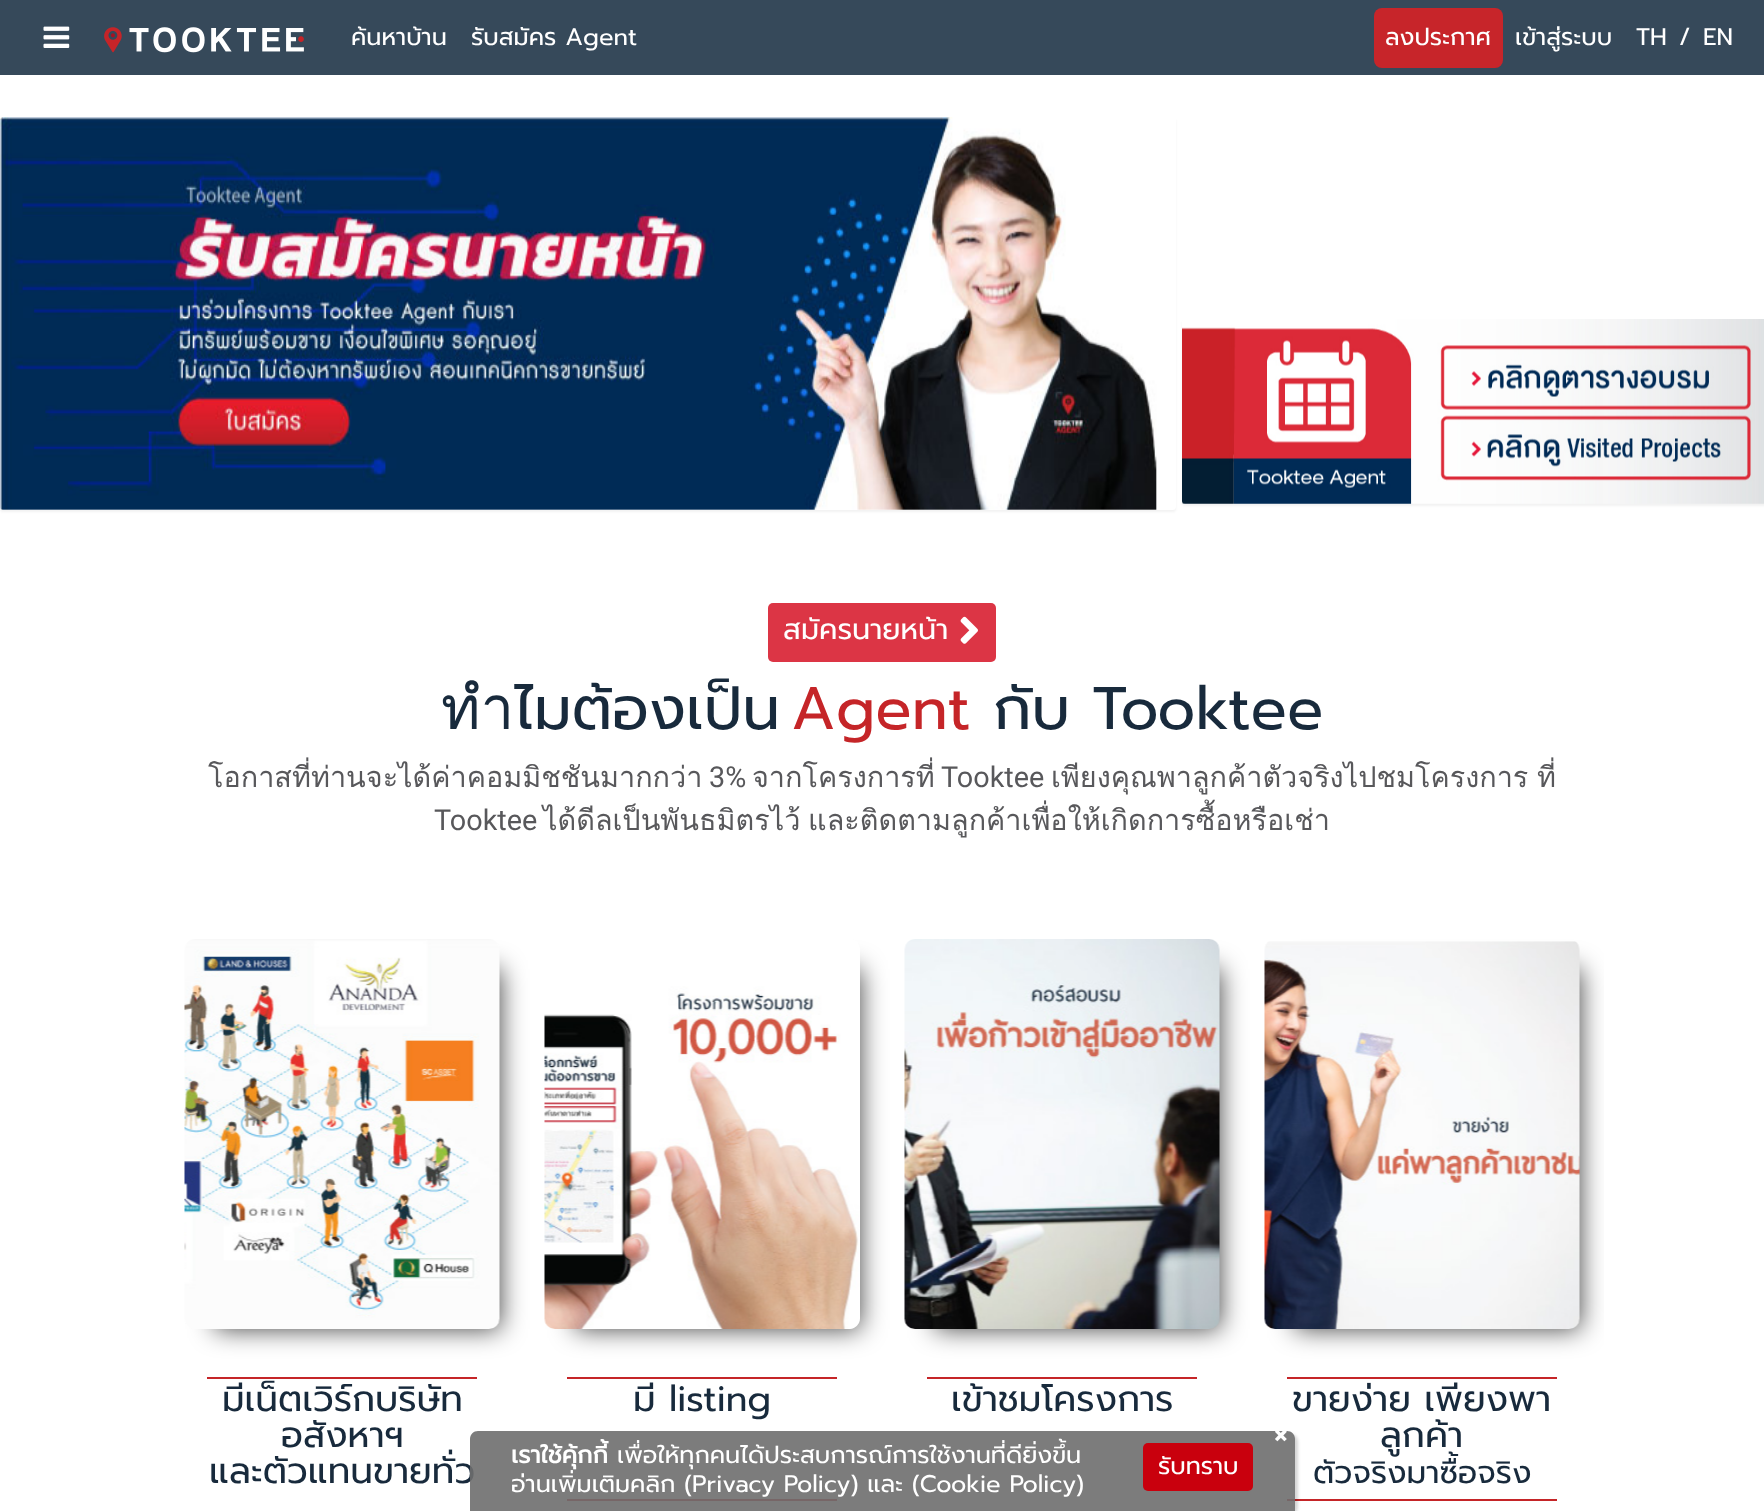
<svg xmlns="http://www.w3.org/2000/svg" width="1764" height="1511">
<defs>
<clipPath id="clip1"><path d="M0 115h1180v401h-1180zm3 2h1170c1.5 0 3 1.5 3 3v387c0 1.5-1.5 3-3 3h-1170c-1.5 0-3-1.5-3-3v-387c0-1.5 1.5-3 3-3z" clip-rule="evenodd"/></clipPath>
<clipPath id="clip2"><path d="M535 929h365v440h-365zm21 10h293c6 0 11 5 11 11v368c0 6-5 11-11 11h-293c-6 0-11-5-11-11v-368c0-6 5-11 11-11z" clip-rule="evenodd"/></clipPath>
<clipPath id="clip3"><rect x="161" y="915" width="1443" height="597"/></clipPath>
<clipPath id="clip4"><path d="M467 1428h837v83h-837zm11 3h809c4.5 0 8 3.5 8 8v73h-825v-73c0-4.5 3.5-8 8-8z" clip-rule="evenodd"/></clipPath>
</defs>
<rect width="100%" height="100%" fill="#fff"/>
<rect width="1764" height="75" fill="#36495a"/>
<image x="43" y="26" width="27" height="22" href="media/1.png"/>
<image x="104" y="27" width="200" height="26" href="media/2.png"/>
<text x="351" y="45" style="font-family:Prompt;font-size:24px;fill:#fff">ค้นหาบ้าน</text>
<text x="471" y="45" style="font-family:Prompt;font-size:24px;fill:#fff">รับสมัคร Agent</text>
<rect x="1374" y="8" width="129" height="60" rx="8" fill="#c7252a"/>
<text x="1385" y="45" style="font-family:Prompt;font-size:24px;fill:#fff">ลงประกาศ</text>
<text x="1515" y="45" style="font-family:Prompt;font-size:24px;fill:#fff">เข้าสู่ระบบ</text>
<text x="1636" y="45" style="font-family:Prompt;font-size:24px;fill:#fff">TH</text>
<text x="1679" y="45" style="font-family:Prompt;font-size:24px;fill:#fff">/</text>
<text x="1703" y="45" style="font-family:Prompt;font-size:24px;fill:#fff">EN</text>
<g clip-path="url(#clip1)">
<rect y="119" width="1176" height="393" rx="3" fill="#0000000d" filter="blur(1px)"/>
</g>
<image x="0" y="117" width="1157" height="393" href="media/3.png"/>
<rect x="1182" y="321" width="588" height="185" rx="3" fill="#0000000d" filter="blur(1px)"/>
<image x="1182" y="319" width="582" height="185" href="media/4.png"/>
<rect x="768" y="603" width="228" height="59" rx="5" fill="#dc3545"/>
<text x="783" y="639" style="font-family:Prompt;font-size:28.8px;fill:#fff">สมัครนายหน้า</text>
<image x="960" y="616" width="18" height="28" href="media/5.png"/>
<text x="441" y="729" style="font-family:Prompt;font-size:60px;fill:#182a3c">ทำไมต้องเป็น</text>
<text x="791" y="729" style="font-family:Prompt;font-size:60px;fill:#c52528">Agent</text>
<text x="993" y="729" style="font-family:Prompt;font-size:60px;fill:#182a3c">กับ Tooktee</text>
<text x="208" y="787" style="font-family:Loma;font-size:28.8px;fill:#58585b">โอกาสที่ท่านจะได้ค่าคอมมิชชันมากกว่า</text>
<text x="709" y="787" style="font-family:Roboto;font-size:28.8px;fill:#58585b">3%</text>
<text x="752" y="787" style="font-family:Loma;font-size:28.8px;fill:#58585b">จากโครงการที่</text>
<text x="941" y="787" style="font-family:Roboto;font-size:28.8px;fill:#58585b">Tooktee</text>
<text x="1051" y="787" word-spacing="-1" style="font-family:Loma;font-size:28.8px;fill:#58585b">เพียงคุณพาลูกค้าตัวจริงไปชมโครงการ ที่</text>
<text x="434" y="830" style="font-family:Roboto;font-size:28.8px;fill:#58585b">Tooktee</text>
<text x="543" y="830" word-spacing="-2" style="font-family:Loma;font-size:28.8px;fill:#58585b">ได้ดีลเป็นพันธมิตรไว้ และติดตามลูกค้าเพื่อให้เกิดการซื้อหรือเช่า</text>
<rect x="215" y="969" width="285" height="360" fill="#000000bf" filter="blur(13px)"/>
<image x="184" y="939" width="316" height="390" href="media/6.png"/>
<rect x="207" y="1377" width="270" height="2" fill="#c52528"/>
<text x="222" y="1411" style="font-family:Prompt;font-size:36px;fill:#182a3c">มีเน็ตเวิร์กบริษัท</text>
<text x="281" y="1447" style="font-family:Prompt;font-size:36px;fill:#182a3c">อสังหาฯ</text>
<text x="209" y="1483" style="font-family:Prompt;font-size:36px;fill:#182a3c">และตัวแทนขายทั่ว</text>
<g clip-path="url(#clip2)">
<rect x="575" y="969" width="285" height="360" fill="#000000bf" filter="blur(13px)"/>
</g>
<image x="544" y="956" width="316" height="373" href="media/7.png"/>
<rect x="567" y="1377" width="270" height="2" fill="#c52528"/>
<rect x="567" y="1499" width="270" height="2" fill="#c52528"/>
<text x="633" y="1411" style="font-family:Prompt;font-size:36px;fill:#182a3c">มี listing</text>
<rect x="935" y="969" width="285" height="360" fill="#000000bf" filter="blur(13px)"/>
<image x="904" y="939" width="316" height="390" href="media/8.png"/>
<rect x="927" y="1377" width="270" height="2" fill="#c52528"/>
<text x="951" y="1411" style="font-family:Prompt;font-size:36px;fill:#182a3c">เข้าชมโครงการ</text>
<g clip-path="url(#clip3)">
<rect x="1295" y="969" width="285" height="360" fill="#000000bf" filter="blur(13px)"/>
</g>
<image x="1264" y="941" width="316" height="388" href="media/9.png"/>
<rect x="1287" y="1377" width="270" height="2" fill="#c52528"/>
<rect x="1287" y="1499" width="270" height="2" fill="#c52528"/>
<text x="1292" y="1411" style="font-family:Prompt;font-size:36px;fill:#182a3c">ขายง่าย เพียงพา</text>
<text x="1380" y="1447" style="font-family:Prompt;font-size:36px;fill:#182a3c">ลูกค้า</text>
<text x="1313" y="1483" style="font-family:Prompt;font-size:31.5px;fill:#182a3c">ตัวจริงมาซื้อจริง</text>
<g clip-path="url(#clip4)">
<rect x="473" y="1434" width="825" height="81" rx="8" fill="#00000029" filter="blur(1.5px)"/>
</g>
<path d="M478 1431h809c4.5 0 8 3.5 8 8v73h-825v-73c0-4.5 3.5-8 8-8z" fill="#6e6e6ee6"/>
<text x="511" y="1463" style="font-family:Prompt;font-size:24px;font-weight:bold;fill:#fff">เราใช้คุ้กกี้</text>
<text x="617" y="1463" style="font-family:Prompt;font-size:24px;fill:#fff">เพื่อให้ทุกคนได้ประสบการณ์การใช้งานที่ดียิ่งขึ้น</text>
<text x="511" y="1492" style="font-family:Prompt;font-size:24px;fill:#fff">อ่านเพิ่มเติมคลิก (Privacy Policy) และ (Cookie Policy)</text>
<text x="1273" y="1448" style="font-family:Prompt;font-size:42px;fill:#fff">×</text>
<rect x="1143" y="1443" width="110" height="48" rx="5" fill="#c9000d"/>
<text x="1158" y="1474" style="font-family:Prompt;font-size:24px;fill:#fff">รับทราบ</text>
</svg>
